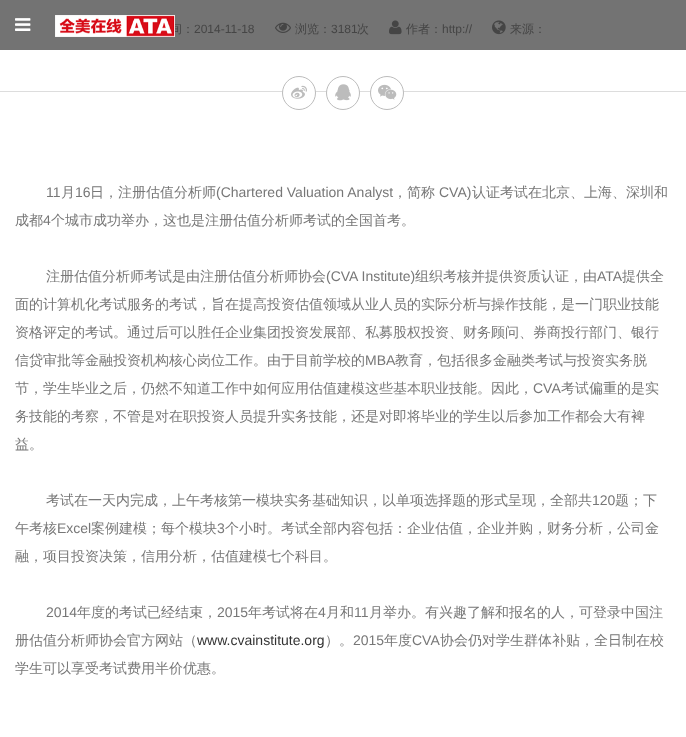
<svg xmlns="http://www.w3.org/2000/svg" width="686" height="737">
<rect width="100%" height="100%" fill="#fff"/>
<rect width="686" height="50" fill="#737373"/>
<image x="15" y="18" width="16" height="13" href="media/1.png"/>
<text x="170" y="33" style="font-family:WenQuanYi Zen Hei;font-size:12px;font-weight:500;fill:#454545">间：</text>
<image x="55" y="15" width="120" height="22" href="media/2.png"/>
<rect y="91" width="686" height="1" fill="#ddd"/>
<text x="194" y="33" style="font-family:Liberation Sans;font-size:12px;fill:#454545">2014-11-18</text>
<image x="275" y="22" width="16" height="11" href="media/3.png"/>
<text x="295" y="33" style="font-family:WenQuanYi Zen Hei;font-size:12px;font-weight:500;fill:#454545">浏览：</text>
<text x="331" y="33" style="font-family:Liberation Sans;font-size:12px;fill:#454545">3181</text>
<text x="357" y="33" style="font-family:WenQuanYi Zen Hei;font-size:12px;font-weight:500;fill:#454545">次</text>
<image x="389" y="20" width="13" height="15" href="media/4.png"/>
<text x="406" y="33" style="font-family:WenQuanYi Zen Hei;font-size:12px;font-weight:500;fill:#454545">作者：</text>
<text x="442" y="33" style="font-family:Liberation Sans;font-size:12px;fill:#454545">http://</text>
<image x="492" y="20" width="14" height="15" href="media/5.png"/>
<text x="510" y="33" style="font-family:WenQuanYi Zen Hei;font-size:12px;font-weight:500;fill:#454545">来源：</text>
<circle cx="299" cy="93" r="16.5" fill="#fff" stroke="#bcbcbc"/>
<image x="291" y="85" width="16" height="14" href="media/6.png"/>
<circle cx="343" cy="93" r="16.5" fill="#fff" stroke="#bcbcbc"/>
<image x="335" y="84" width="16" height="17" href="media/7.png"/>
<circle cx="387" cy="93" r="16.5" fill="#fff" stroke="#bcbcbc"/>
<image x="378" y="84" width="19" height="16" href="media/8.png"/>
<text x="46" y="197" style="font-family:Liberation Sans;font-size:14px;fill:#777">11</text>
<text x="61" y="197" style="font-family:WenQuanYi Zen Hei;font-size:14px;font-weight:500;fill:#777">月</text>
<text x="75" y="197" style="font-family:Liberation Sans;font-size:14px;fill:#777">16</text>
<text x="90" y="197" style="font-family:WenQuanYi Zen Hei;font-size:14px;font-weight:500;fill:#777">日，注册估值分析师</text>
<text x="216" y="197" style="font-family:Liberation Sans;font-size:14px;fill:#777">(Chartered Valuation Analyst</text>
<text x="393" y="197" style="font-family:WenQuanYi Zen Hei;font-size:14px;font-weight:500;fill:#777">，简称</text>
<text x="439" y="197" style="font-family:Liberation Sans;font-size:14px;fill:#777">CVA)</text>
<text x="472" y="197" style="font-family:WenQuanYi Zen Hei;font-size:14px;font-weight:500;fill:#777">认证考试在北京、上海、深圳和</text>
<text x="15" y="225" style="font-family:WenQuanYi Zen Hei;font-size:14px;font-weight:500;fill:#777">成都</text>
<text x="43" y="225" style="font-family:Liberation Sans;font-size:14px;fill:#777">4</text>
<text x="51" y="225" style="font-family:WenQuanYi Zen Hei;font-size:14px;font-weight:500;fill:#777">个城市成功举办，这也是注册估值分析师考试的全国首考。</text>
<text x="46" y="281" style="font-family:WenQuanYi Zen Hei;font-size:14px;font-weight:500;fill:#777">注册估值分析师考试是由注册估值分析师协会</text>
<text x="326" y="281" style="font-family:Liberation Sans;font-size:14px;fill:#777">(CVA Institute)</text>
<text x="415" y="281" style="font-family:WenQuanYi Zen Hei;font-size:14px;font-weight:500;fill:#777">组织考核并提供资质认证，由</text>
<text x="597" y="281" style="font-family:Liberation Sans;font-size:14px;fill:#777">ATA</text>
<text x="622" y="281" style="font-family:WenQuanYi Zen Hei;font-size:14px;font-weight:500;fill:#777">提供全</text>
<text x="15" y="309" style="font-family:WenQuanYi Zen Hei;font-size:14px;font-weight:500;fill:#777">面的计算机化考试服务的考试，旨在提高投资估值领域从业人员的实际分析与操作技能，是一门职业技能</text>
<text x="15" y="337" style="font-family:WenQuanYi Zen Hei;font-size:14px;font-weight:500;fill:#777">资格评定的考试。通过后可以胜任企业集团投资发展部、私募股权投资、财务顾问、券商投行部门、银行</text>
<text x="15" y="365" style="font-family:WenQuanYi Zen Hei;font-size:14px;font-weight:500;fill:#777">信贷审批等金融投资机构核心岗位工作。由于目前学校的</text>
<text x="365" y="365" style="font-family:Liberation Sans;font-size:14px;fill:#777">MBA</text>
<text x="395" y="365" style="font-family:WenQuanYi Zen Hei;font-size:14px;font-weight:500;fill:#777">教育，包括很多金融类考试与投资实务脱</text>
<text x="15" y="393" style="font-family:WenQuanYi Zen Hei;font-size:14px;font-weight:500;fill:#777">节，学生毕业之后，仍然不知道工作中如何应用估值建模这些基本职业技能。因此，</text>
<text x="533" y="393" style="font-family:Liberation Sans;font-size:14px;fill:#777">CVA</text>
<text x="561" y="393" style="font-family:WenQuanYi Zen Hei;font-size:14px;font-weight:500;fill:#777">考试偏重的是实</text>
<text x="15" y="421" style="font-family:WenQuanYi Zen Hei;font-size:14px;font-weight:500;fill:#777">务技能的考察，不管是对在职投资人员提升实务技能，还是对即将毕业的学生以后参加工作都会大有裨</text>
<text x="15" y="449" style="font-family:WenQuanYi Zen Hei;font-size:14px;font-weight:500;fill:#777">益。</text>
<text x="46" y="505" style="font-family:WenQuanYi Zen Hei;font-size:14px;font-weight:500;fill:#777">考试在一天内完成，上午考核第一模块实务基础知识，以单项选择题的形式呈现，全部共</text>
<text x="592" y="505" style="font-family:Liberation Sans;font-size:14px;fill:#777">120</text>
<text x="615" y="505" style="font-family:WenQuanYi Zen Hei;font-size:14px;font-weight:500;fill:#777">题；下</text>
<text x="15" y="533" style="font-family:WenQuanYi Zen Hei;font-size:14px;font-weight:500;fill:#777">午考核</text>
<text x="57" y="533" style="font-family:Liberation Sans;font-size:14px;fill:#777">Excel</text>
<text x="91" y="533" style="font-family:WenQuanYi Zen Hei;font-size:14px;font-weight:500;fill:#777">案例建模；每个模块</text>
<text x="217" y="533" style="font-family:Liberation Sans;font-size:14px;fill:#777">3</text>
<text x="225" y="533" style="font-family:WenQuanYi Zen Hei;font-size:14px;font-weight:500;fill:#777">个小时。考试全部内容包括：企业估值，企业并购，财务分析，公司金</text>
<text x="15" y="561" style="font-family:WenQuanYi Zen Hei;font-size:14px;font-weight:500;fill:#777">融，项目投资决策，信用分析，估值建模七个科目。</text>
<text x="46" y="617" style="font-family:Liberation Sans;font-size:14px;fill:#777">2014</text>
<text x="77" y="617" style="font-family:WenQuanYi Zen Hei;font-size:14px;font-weight:500;fill:#777">年度的考试已经结束，</text>
<text x="217" y="617" style="font-family:Liberation Sans;font-size:14px;fill:#777">2015</text>
<text x="248" y="617" style="font-family:WenQuanYi Zen Hei;font-size:14px;font-weight:500;fill:#777">年考试将在</text>
<text x="318" y="617" style="font-family:Liberation Sans;font-size:14px;fill:#777">4</text>
<text x="326" y="617" style="font-family:WenQuanYi Zen Hei;font-size:14px;font-weight:500;fill:#777">月和</text>
<text x="354" y="617" style="font-family:Liberation Sans;font-size:14px;fill:#777">11</text>
<text x="369" y="617" style="font-family:WenQuanYi Zen Hei;font-size:14px;font-weight:500;fill:#777">月举办。有兴趣了解和报名的人，可登录中国注</text>
<text x="15" y="645" style="font-family:WenQuanYi Zen Hei;font-size:14px;font-weight:500;fill:#777">册估值分析师协会官方网站（</text>
<text x="197" y="645" style="font-family:Liberation Sans;font-size:14px;fill:#333">www.cvainstitute.org</text>
<text x="325" y="645" style="font-family:WenQuanYi Zen Hei;font-size:14px;font-weight:500;fill:#777">）。</text>
<text x="353" y="645" style="font-family:Liberation Sans;font-size:14px;fill:#777">2015</text>
<text x="384" y="645" style="font-family:WenQuanYi Zen Hei;font-size:14px;font-weight:500;fill:#777">年度</text>
<text x="412" y="645" style="font-family:Liberation Sans;font-size:14px;fill:#777">CVA</text>
<text x="440" y="645" style="font-family:WenQuanYi Zen Hei;font-size:14px;font-weight:500;fill:#777">协会仍对学生群体补贴，全日制在校</text>
<text x="15" y="673" style="font-family:WenQuanYi Zen Hei;font-size:14px;font-weight:500;fill:#777">学生可以享受考试费用半价优惠。</text>
</svg>
